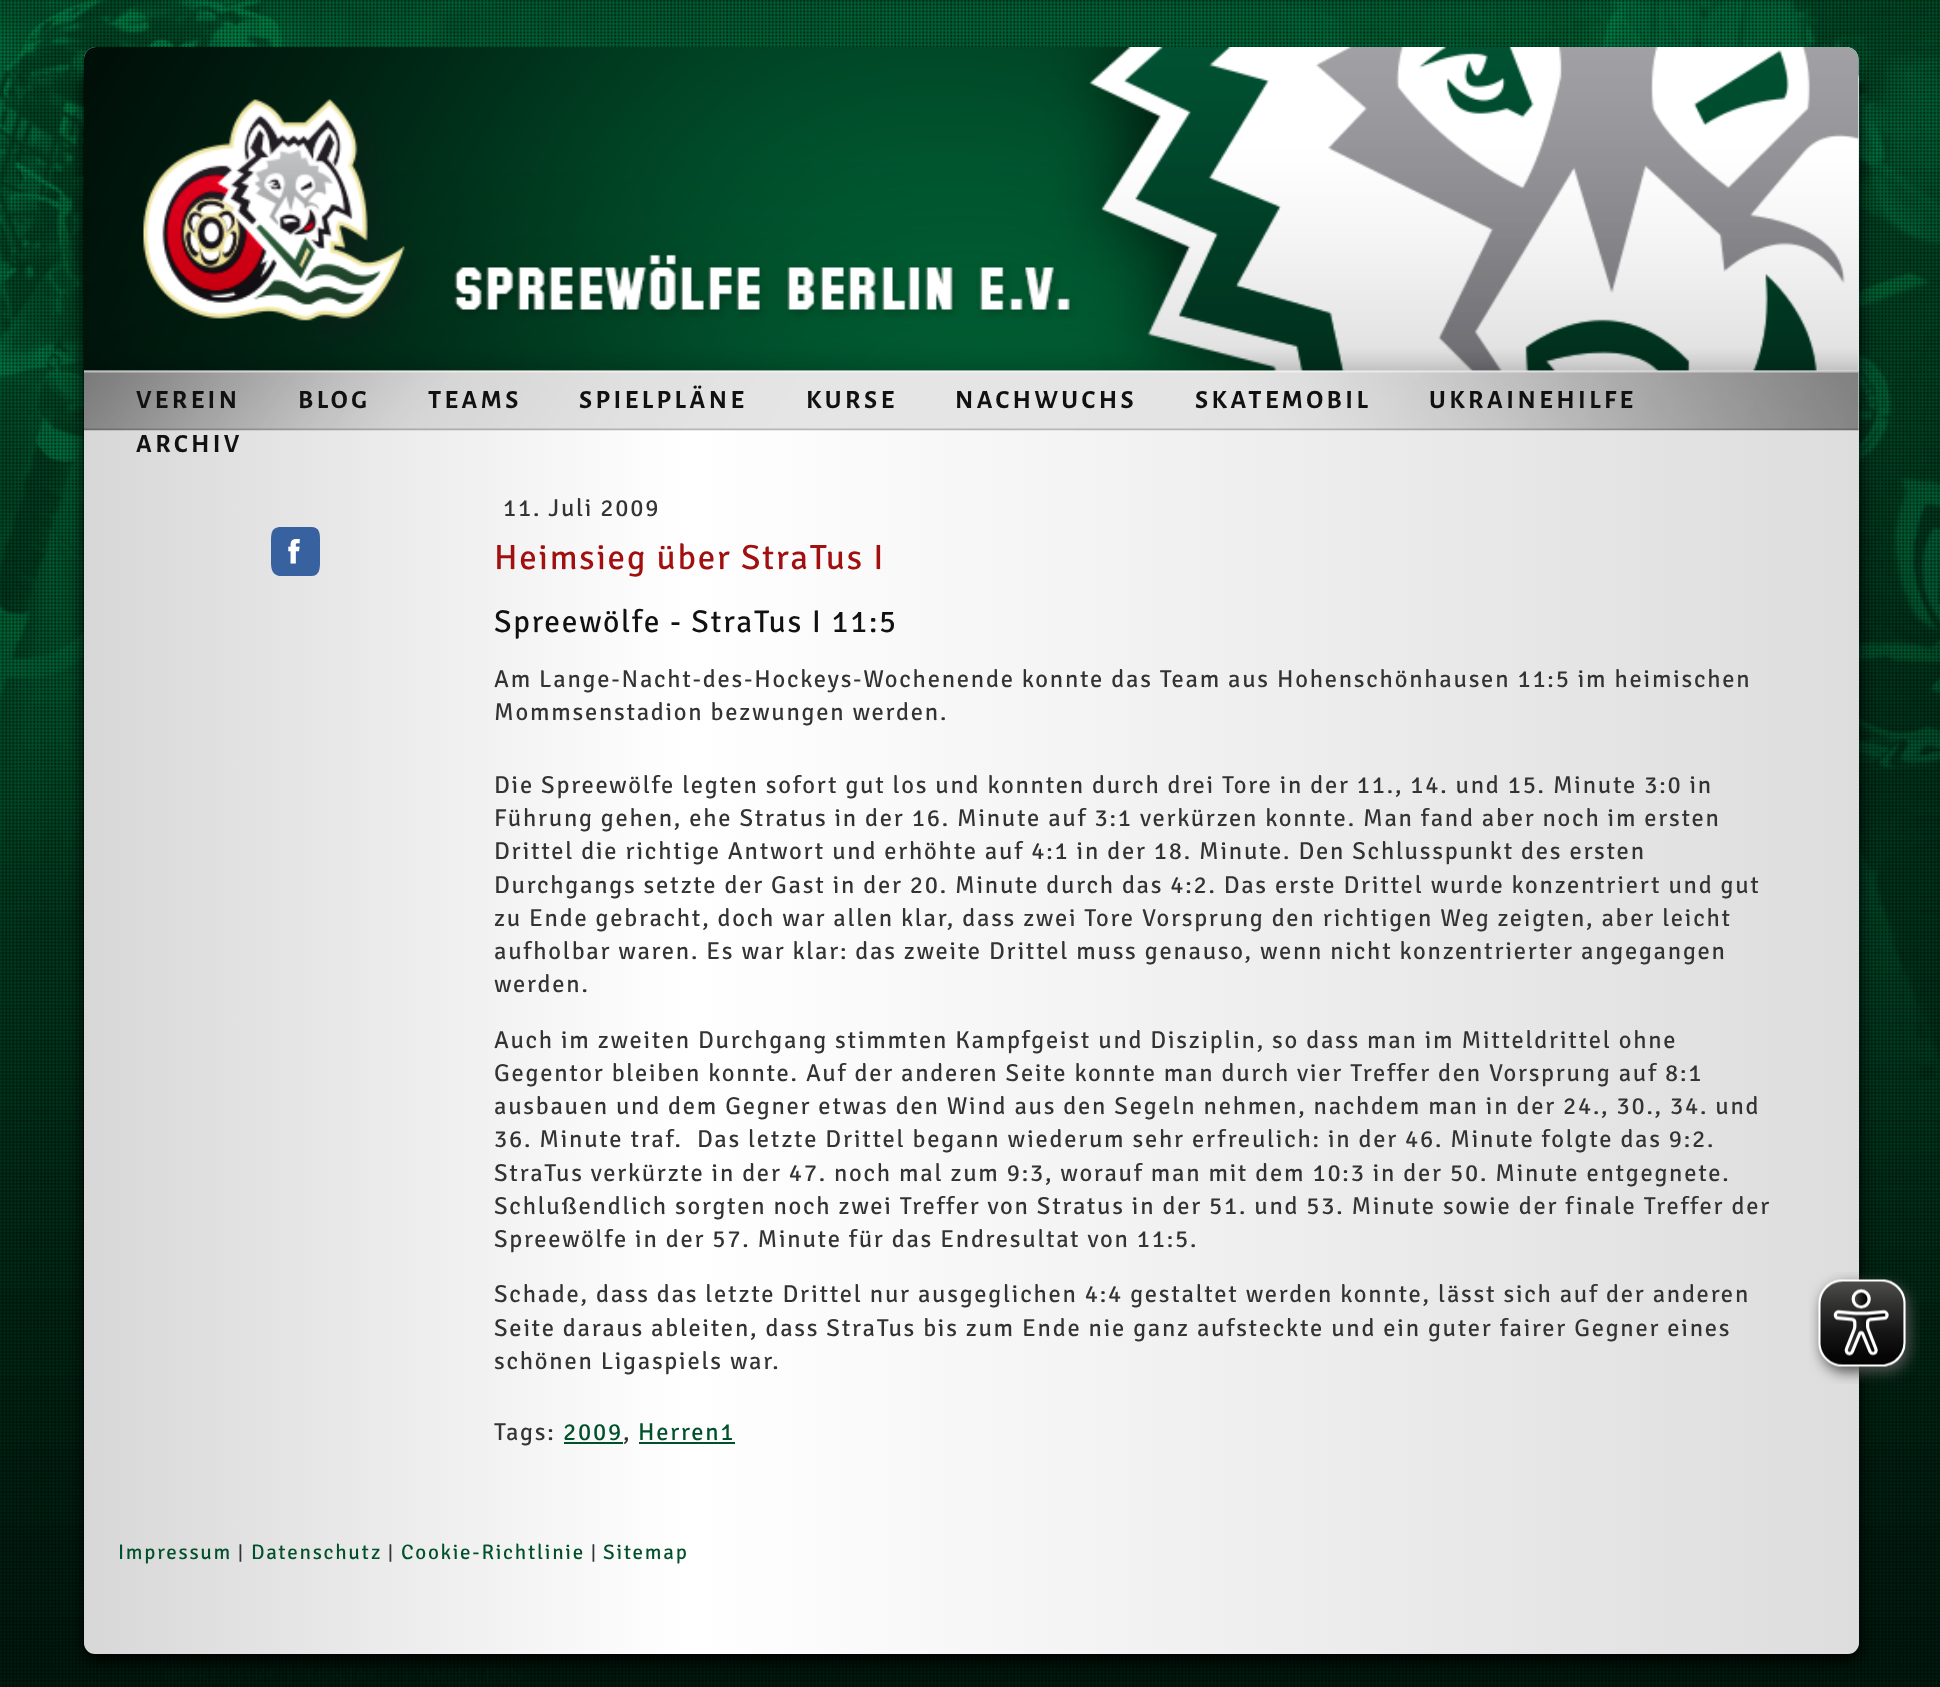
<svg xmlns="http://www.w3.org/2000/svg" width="1940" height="1687">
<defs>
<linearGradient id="g1" gradientUnits="userSpaceOnUse" x1="84" y1="861" x2="1859" y2="861"><stop offset="0" stop-color="#d7d7d7"/><stop offset="0.34" stop-color="#fff"/><stop offset="1" stop-color="#ddd"/></linearGradient>
</defs>
<rect width="100%" height="100%" fill="#001b0f"/>
<image x="0" y="0" width="1940" height="1685" href="media/1.png"/>
<image x="0" y="0" width="1940" height="1687" href="media/2.png"/>
<rect x="84" y="75" width="1775" height="1586" rx="11" fill="#000" filter="blur(8px)"/>
<rect x="84" y="68" width="1775" height="1586" rx="11" fill="url(#g1)"/>
<image x="83" y="47" width="1776" height="324" href="media/3.png"/>
<image x="84" y="47" width="1775" height="324" href="media/4.png"/>
<image x="84" y="370" width="1775" height="61" href="media/5.png"/>
<text x="136" y="408" style="font-family:Alegreya Sans;font-size:26.25px;font-weight:bold;letter-spacing:3.5px;fill:#111">VEREIN</text>
<text x="298" y="408" style="font-family:Alegreya Sans;font-size:26.25px;font-weight:bold;letter-spacing:3.5px;fill:#111">BLOG</text>
<text x="428" y="408" style="font-family:Alegreya Sans;font-size:26.25px;font-weight:bold;letter-spacing:3.5px;fill:#111">TEAMS</text>
<text x="579" y="408" style="font-family:Alegreya Sans;font-size:26.25px;font-weight:bold;letter-spacing:3.5px;fill:#111">SPIELPLÄNE</text>
<text x="806" y="408" style="font-family:Alegreya Sans;font-size:26.25px;font-weight:bold;letter-spacing:3.5px;fill:#111">KURSE</text>
<text x="955" y="408" style="font-family:Alegreya Sans;font-size:26.25px;font-weight:bold;letter-spacing:3.5px;fill:#111">NACHWUCHS</text>
<text x="1195" y="408" style="font-family:Alegreya Sans;font-size:26.25px;font-weight:bold;letter-spacing:3.5px;fill:#111">SKATEMOBIL</text>
<text x="1429" y="408" style="font-family:Alegreya Sans;font-size:26.25px;font-weight:bold;letter-spacing:3.5px;fill:#111">UKRAINEHILFE</text>
<text x="136" y="452" style="font-family:Alegreya Sans;font-size:26.25px;font-weight:bold;letter-spacing:3.5px;fill:#111">ARCHIV</text>
<path d="M311 576h-32c-8-2-8-9-8-15v-20c0-6 0-13 8-14h32c9 0 9 7 9 14v20c0 7 0 15-9 15z" fill="#38619f"/>
<image x="288" y="539" width="12" height="25" href="media/6.png"/>
<text x="503" y="516" style="font-family:Signika Negative;font-size:24.5px;letter-spacing:1.75px;fill:#333">11. Juli 2009</text>
<text x="494" y="569" style="font-family:Signika Negative;font-size:35px;letter-spacing:1.75px;fill:#a10f0f">Heimsieg über StraTus I</text>
<text x="494" y="632" style="font-family:Signika Negative;font-size:31.5px;letter-spacing:1.75px;fill:#111">Spreewölfe - StraTus I 11:5</text>
<text x="494" y="687" style="font-family:Signika Negative;font-size:24.5px;letter-spacing:1.75px;fill:#333">Am Lange-Nacht-des-Hockeys-Wochenende konnte das Team aus Hohenschönhausen 11:5 im heimischen</text>
<text x="494" y="720" style="font-family:Signika Negative;font-size:24.5px;letter-spacing:1.75px;fill:#333">Mommsenstadion bezwungen werden.</text>
<text x="494" y="793" style="font-family:Signika Negative;font-size:24.5px;letter-spacing:1.75px;fill:#333">Die Spreewölfe legten sofort gut los und konnten durch drei Tore in der 11., 14. und 15. Minute 3:0 in</text>
<text x="494" y="826" style="font-family:Signika Negative;font-size:24.5px;letter-spacing:1.75px;fill:#333">Führung gehen, ehe Stratus in der 16. Minute auf 3:1 verkürzen konnte. Man fand aber noch im ersten</text>
<text x="494" y="859" style="font-family:Signika Negative;font-size:24.5px;letter-spacing:1.75px;fill:#333">Drittel die richtige Antwort und erhöhte auf 4:1 in der 18. Minute. Den Schlusspunkt des ersten</text>
<text x="494" y="893" style="font-family:Signika Negative;font-size:24.5px;letter-spacing:1.75px;fill:#333">Durchgangs setzte der Gast in der 20. Minute durch das 4:2. Das erste Drittel wurde konzentriert und gut</text>
<text x="494" y="926" style="font-family:Signika Negative;font-size:24.5px;letter-spacing:1.75px;fill:#333">zu Ende gebracht, doch war allen klar, dass zwei Tore Vorsprung den richtigen Weg zeigten, aber leicht</text>
<text x="494" y="959" style="font-family:Signika Negative;font-size:24.5px;letter-spacing:1.75px;fill:#333">aufholbar waren. Es war klar: das zweite Drittel muss genauso, wenn nicht konzentrierter angegangen</text>
<text x="494" y="992" style="font-family:Signika Negative;font-size:24.5px;letter-spacing:1.75px;fill:#333">werden.</text>
<text x="494" y="1048" style="font-family:Signika Negative;font-size:24.5px;letter-spacing:1.75px;fill:#333">Auch im zweiten Durchgang stimmten Kampfgeist und Disziplin, so dass man im Mitteldrittel ohne</text>
<text x="494" y="1081" style="font-family:Signika Negative;font-size:24.5px;letter-spacing:1.75px;fill:#333">Gegentor bleiben konnte. Auf der anderen Seite konnte man durch vier Treffer den Vorsprung auf 8:1</text>
<text x="494" y="1114" style="font-family:Signika Negative;font-size:24.5px;letter-spacing:1.75px;fill:#333">ausbauen und dem Gegner etwas den Wind aus den Segeln nehmen, nachdem man in der 24., 30., 34. und</text>
<text x="494" y="1147" style="font-family:Signika Negative;font-size:24.5px;letter-spacing:1.75px;fill:#333" xml:space="preserve">36. Minute traf.  Das letzte Drittel begann wiederum sehr erfreulich: in der 46. Minute folgte das 9:2.</text>
<text x="494" y="1181" style="font-family:Signika Negative;font-size:24.5px;letter-spacing:1.75px;fill:#333">StraTus verkürzte in der 47. noch mal zum 9:3, worauf man mit dem 10:3 in der 50. Minute entgegnete.</text>
<text x="494" y="1214" style="font-family:Signika Negative;font-size:24.5px;letter-spacing:1.75px;fill:#333">Schlußendlich sorgten noch zwei Treffer von Stratus in der 51. und 53. Minute sowie der finale Treffer der</text>
<text x="494" y="1247" style="font-family:Signika Negative;font-size:24.5px;letter-spacing:1.75px;fill:#333">Spreewölfe in der 57. Minute für das Endresultat von 11:5.</text>
<text x="494" y="1302" style="font-family:Signika Negative;font-size:24.5px;letter-spacing:1.75px;fill:#333">Schade, dass das letzte Drittel nur ausgeglichen 4:4 gestaltet werden konnte, lässt sich auf der anderen</text>
<text x="494" y="1336" style="font-family:Signika Negative;font-size:24.5px;letter-spacing:1.75px;fill:#333">Seite daraus ableiten, dass StraTus bis zum Ende nie ganz aufsteckte und ein guter fairer Gegner eines</text>
<text x="494" y="1369" style="font-family:Signika Negative;font-size:24.5px;letter-spacing:1.75px;fill:#333">schönen Ligaspiels war.</text>
<text x="494" y="1440" style="font-family:Signika Negative;font-size:24.5px;letter-spacing:1.75px;fill:#333">Tags:</text>
<text x="563" y="1440" style="font-family:Signika Negative;font-size:24.5px;letter-spacing:1.75px;fill:#00502b">2009</text>
<text x="623" y="1440" style="font-family:Signika Negative;font-size:24.5px;letter-spacing:1.75px;fill:#333">,</text>
<rect x="564" y="1442" width="59" height="2" fill="#00502b"/>
<rect x="639" y="1442" width="96" height="2" fill="#00502b"/>
<text x="638" y="1440" style="font-family:Signika Negative;font-size:24.5px;letter-spacing:1.75px;fill:#00502b">Herren1</text>
<text x="118" y="1559" style="font-family:Signika Negative;font-size:21px;letter-spacing:1.75px;fill:#00502b">Impressum</text>
<text x="238" y="1559" style="font-family:Signika Negative;font-size:19px;letter-spacing:1.75px;fill:#333">|</text>
<text x="251" y="1559" style="font-family:Signika Negative;font-size:21px;letter-spacing:1.75px;fill:#00502b">Datenschutz</text>
<text x="388" y="1559" style="font-family:Signika Negative;font-size:19px;letter-spacing:1.75px;fill:#333">|</text>
<text x="401" y="1559" style="font-family:Signika Negative;font-size:21px;letter-spacing:1.75px;fill:#00502b">Cookie-Richtlinie</text>
<text x="591" y="1559" style="font-family:Signika Negative;font-size:19px;letter-spacing:1.75px;fill:#333">|</text>
<text x="603" y="1559" style="font-family:Signika Negative;font-size:21px;letter-spacing:1.75px;fill:#00502b">Sitemap</text>
<image x="1809" y="1272" width="111" height="112" href="media/7.png"/>
</svg>
